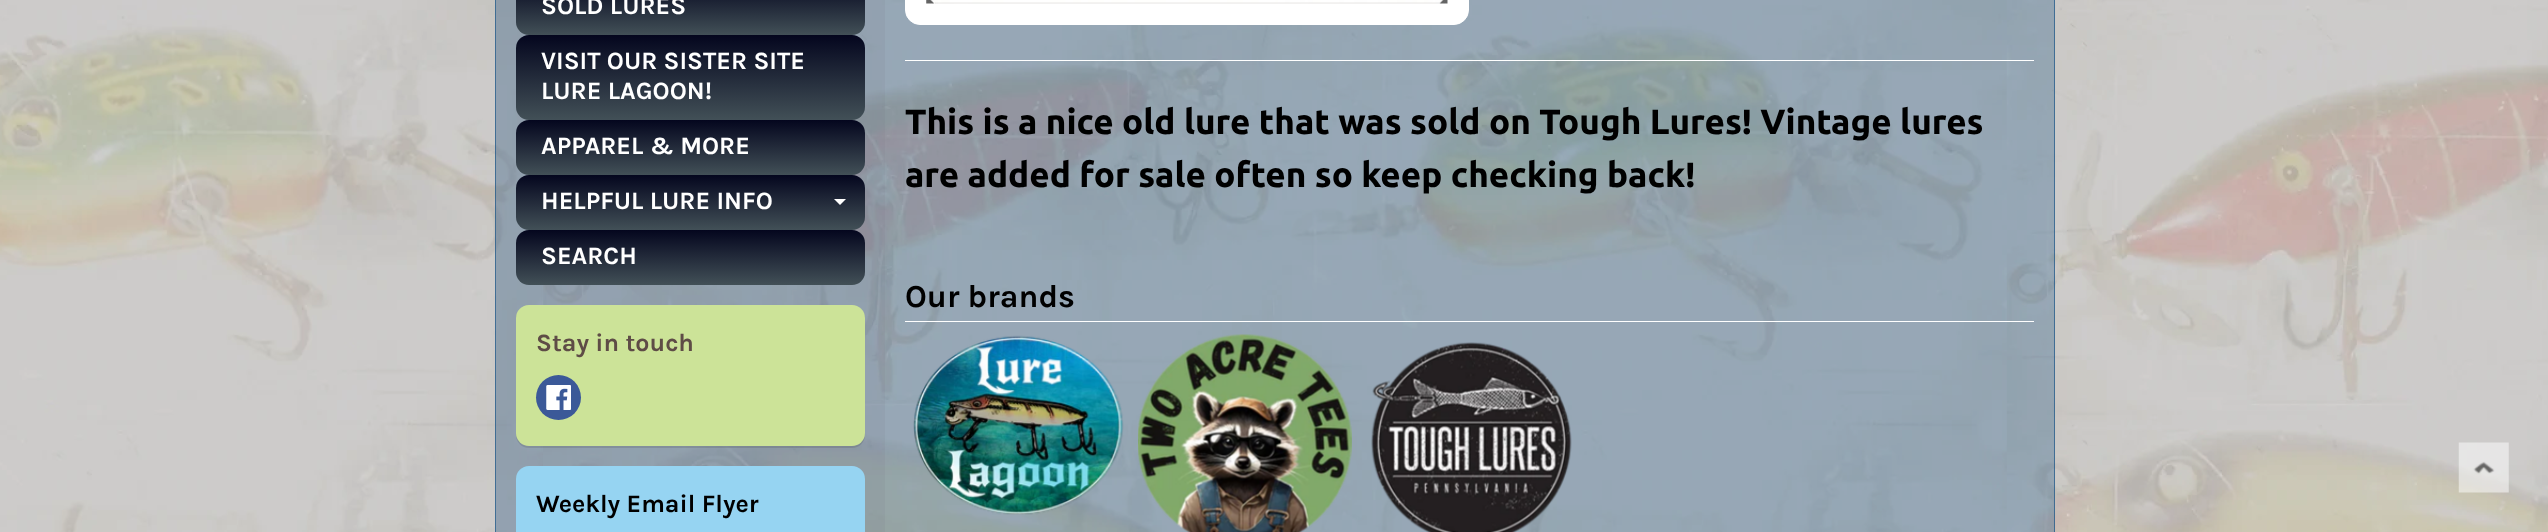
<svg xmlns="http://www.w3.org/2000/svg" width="2548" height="532">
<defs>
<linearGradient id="g1" gradientUnits="userSpaceOnUse" x1="691" y1="-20" x2="691" y2="35"><stop offset="0" stop-color="#04061e"/><stop offset="1" stop-color="#425057"/></linearGradient>
<linearGradient id="g2" gradientUnits="userSpaceOnUse" x1="691" y1="35" x2="691" y2="120"><stop offset="0" stop-color="#04061e"/><stop offset="1" stop-color="#425057"/></linearGradient>
<linearGradient id="g3" gradientUnits="userSpaceOnUse" x1="691" y1="120" x2="691" y2="175"><stop offset="0" stop-color="#04061e"/><stop offset="1" stop-color="#425057"/></linearGradient>
<linearGradient id="g4" gradientUnits="userSpaceOnUse" x1="691" y1="175" x2="691" y2="230"><stop offset="0" stop-color="#04061e"/><stop offset="1" stop-color="#425057"/></linearGradient>
<linearGradient id="g5" gradientUnits="userSpaceOnUse" x1="691" y1="230" x2="691" y2="285"><stop offset="0" stop-color="#04061e"/><stop offset="1" stop-color="#425057"/></linearGradient>
</defs>
<rect width="100%" height="100%" fill="#fff"/>
<image x="0" y="0" width="2548" height="532" href="media/1.png"/>
<rect x="495" width="1560" height="532" fill="#1c55874d"/>
<rect x="495.5" y="-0.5" width="1559" height="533" fill="none" stroke="#1c5587b3"/>
<rect x="496" width="389" height="532" fill="#7a6a801a"/>
<rect x="516" y="-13" width="349" height="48" rx="13" fill="url(#g1)"/>
<text x="541" y="14" style="font-family:Karla;font-size:25px;font-weight:bold;fill:#fff">SOLD LURES</text>
<rect x="516" y="35" width="349" height="85" rx="13" fill="url(#g2)"/>
<text x="541" y="69" style="font-family:Karla;font-size:25px;font-weight:bold;fill:#fff">VISIT OUR SISTER SITE</text>
<text x="541" y="99" style="font-family:Karla;font-size:25px;font-weight:bold;fill:#fff">LURE LAGOON!</text>
<rect x="516" y="120" width="349" height="55" rx="13" fill="url(#g3)"/>
<text x="541" y="154" style="font-family:Karla;font-size:25px;font-weight:bold;fill:#fff">APPAREL &amp; MORE</text>
<rect x="516" y="175" width="349" height="55" rx="13" fill="url(#g4)"/>
<text x="541" y="209" style="font-family:Karla;font-size:25px;font-weight:bold;fill:#fff">HELPFUL LURE INFO</text>
<path d="M834 199h12l-6 6z" fill="#fff"/>
<rect x="516" y="230" width="349" height="55" rx="13" fill="url(#g5)"/>
<text x="541" y="264" style="font-family:Karla;font-size:25px;font-weight:bold;fill:#fff">SEARCH</text>
<rect x="516" y="306" width="349" height="142" rx="13" fill="#0000001a" filter="blur(0.5px)"/>
<rect x="516" y="305" width="349" height="141" rx="13" fill="#cce398"/>
<text x="536" y="351" style="font-family:Karla;font-size:25px;font-weight:bold;fill:#5e4c46">Stay in touch</text>
<circle cx="558.5" cy="397.5" r="22.5" fill="#3b5998"/>
<image x="546" y="385" width="25" height="25" href="media/2.png"/>
<rect x="516" y="466" width="349" height="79" rx="13" fill="#96d4f2"/>
<text x="536" y="512" style="font-family:Karla;font-size:25px;font-weight:bold;fill:#000">Weekly Email Flyer</text>
<rect x="905.5" y="-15.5" width="563" height="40" rx="14.5" fill="#fff" stroke="#fff"/>
<image x="926" y="0" width="522" height="4" href="media/3.png"/>
<rect x="905" y="60" width="1129" height="1" fill="#fff"/>
<text x="905" y="134" style="font-family:Ubuntu;font-size:35px;font-weight:bold;fill:#000">This is a nice old lure that was sold on Tough Lures! Vintage lures</text>
<text x="905" y="187" style="font-family:Ubuntu;font-size:35px;font-weight:bold;fill:#000">are added for sale often so keep checking back!</text>
<rect x="905" y="321" width="1129" height="1" fill="#fff"/>
<text x="905" y="307" style="font-family:Karla;font-size:32px;font-weight:bold;fill:#000">Our brands</text>
<image x="913" y="335" width="211" height="180" href="media/4.png"/>
<image x="1138" y="334" width="214" height="198" href="media/5.png"/>
<image x="1371" y="342" width="201" height="190" href="media/6.png"/>
<image x="2458" y="442" width="51" height="51" href="media/7.png"/>
</svg>
